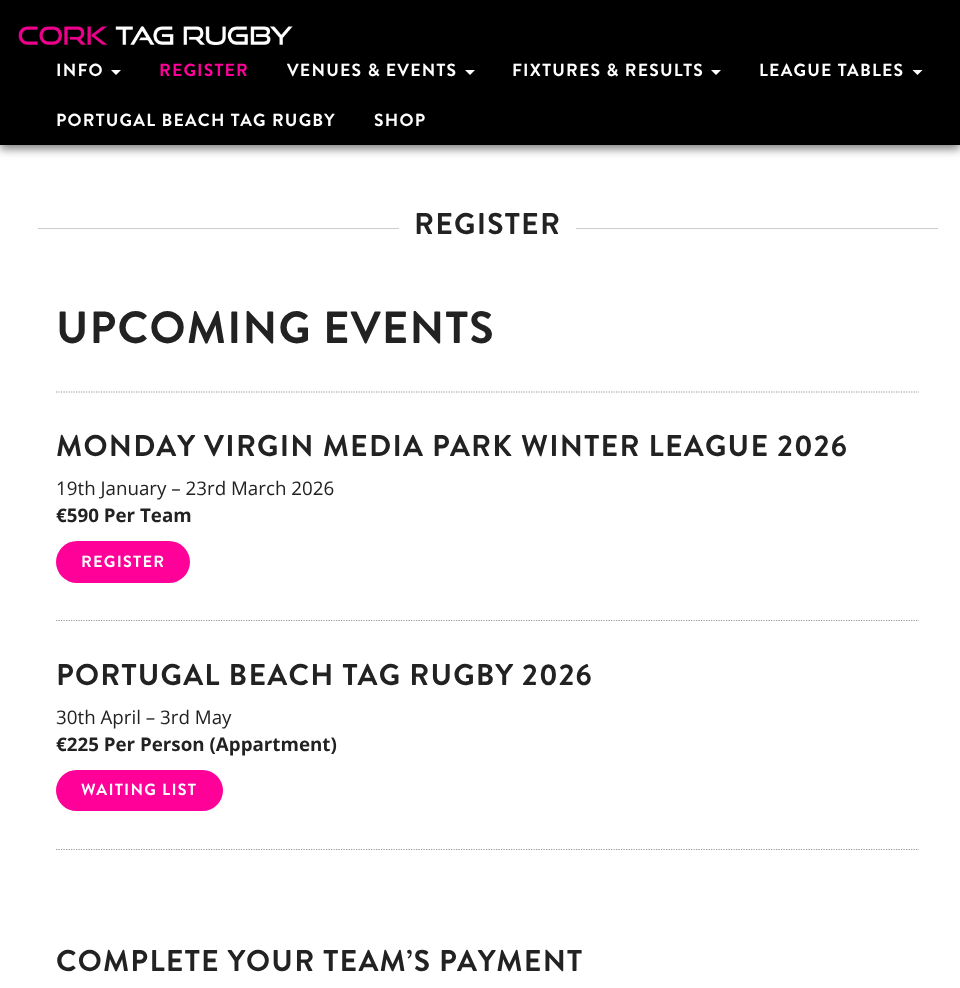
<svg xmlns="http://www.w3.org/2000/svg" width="960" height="988">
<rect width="100%" height="100%" fill="#fff"/>
<rect y="4" width="960" height="145" fill="#00000080" filter="blur(5px)"/>
<rect width="960" height="145" fill="#000"/>
<image x="18" y="26" width="275" height="19" href="media/1.png"/>
<text x="56" y="76" style="font-family:Brandon Grotesque;font-size:17.5px;font-weight:bold;letter-spacing:1.25px;fill:#fff">INFO</text>
<path d="M111 70h10l-5 5z" fill="#fff"/>
<text x="159" y="76" style="font-family:Brandon Grotesque;font-size:17.5px;font-weight:bold;letter-spacing:1.25px;fill:#f09">REGISTER</text>
<text x="287" y="76" style="font-family:Brandon Grotesque;font-size:17.5px;font-weight:bold;letter-spacing:1.25px;fill:#fff">VENUES &amp; EVENTS</text>
<path d="M465 70h10l-5 5z" fill="#fff"/>
<text x="512" y="76" style="font-family:Brandon Grotesque;font-size:17.5px;font-weight:bold;letter-spacing:1.25px;fill:#fff">FIXTURES &amp; RESULTS</text>
<path d="M711 70h10l-5 5z" fill="#fff"/>
<text x="759" y="76" style="font-family:Brandon Grotesque;font-size:17.5px;font-weight:bold;letter-spacing:1.25px;fill:#fff">LEAGUE TABLES</text>
<path d="M912.5 70h10l-5 5z" fill="#fff"/>
<text x="56" y="126" style="font-family:Brandon Grotesque;font-size:17.5px;font-weight:bold;letter-spacing:1.25px;fill:#fff">PORTUGAL BEACH TAG RUGBY</text>
<text x="374" y="126" style="font-family:Brandon Grotesque;font-size:17.5px;font-weight:bold;letter-spacing:1.25px;fill:#fff">SHOP</text>
<rect x="38" y="228" width="361" height="1" fill="#ccc"/>
<text x="414" y="234" style="font-family:Brandon Grotesque;font-size:30px;font-weight:bold;letter-spacing:1.25px;fill:#222">REGISTER</text>
<rect x="576" y="228" width="362" height="1" fill="#ccc"/>
<text x="56" y="343" style="font-family:Brandon Grotesque;font-size:45px;font-weight:bold;letter-spacing:1.25px;fill:#222">UPCOMING EVENTS</text>
<path d="M56 392h863" fill="none" stroke="#999" stroke-width="1.2" stroke-dasharray="1.25 1.25"/>
<text x="56" y="456" style="font-family:Brandon Grotesque;font-size:30px;font-weight:bold;letter-spacing:1.25px;fill:#222">MONDAY VIRGIN MEDIA PARK WINTER LEAGUE 2026</text>
<text x="56" y="495" style="font-family:Open Sans;font-size:18.75px;fill:#222">19th January – 23rd March 2026</text>
<text x="56" y="522" style="font-family:Open Sans;font-size:18.75px;font-weight:bold;fill:#222">€590 Per Team</text>
<rect x="56" y="541" width="134" height="42" rx="21" fill="#f09"/>
<text x="81" y="567" style="font-family:Brandon Grotesque;font-size:16.25px;font-weight:bold;letter-spacing:1.25px;fill:#fff">REGISTER</text>
<path d="M56 620.5h863" fill="none" stroke="#999" stroke-width="1.2" stroke-dasharray="1.25 1.25"/>
<text x="56" y="685" style="font-family:Brandon Grotesque;font-size:30px;font-weight:bold;letter-spacing:1.25px;fill:#222">PORTUGAL BEACH TAG RUGBY 2026</text>
<text x="56" y="724" style="font-family:Open Sans;font-size:18.75px;fill:#222">30th April – 3rd May</text>
<text x="56" y="751" style="font-family:Open Sans;font-size:18.75px;font-weight:bold;fill:#222">€225 Per Person (Appartment)</text>
<rect x="56" y="770" width="167" height="41" rx="20.5" fill="#f09"/>
<text x="81" y="795" style="font-family:Brandon Grotesque;font-size:16.25px;font-weight:bold;letter-spacing:1.25px;fill:#fff">WAITING LIST</text>
<path d="M56 849.5h863" fill="none" stroke="#999" stroke-width="1.2" stroke-dasharray="1.25 1.25"/>
<text x="56" y="971" style="font-family:Brandon Grotesque;font-size:30px;font-weight:bold;letter-spacing:1.25px;fill:#222">COMPLETE YOUR TEAM’S PAYMENT</text>
</svg>
